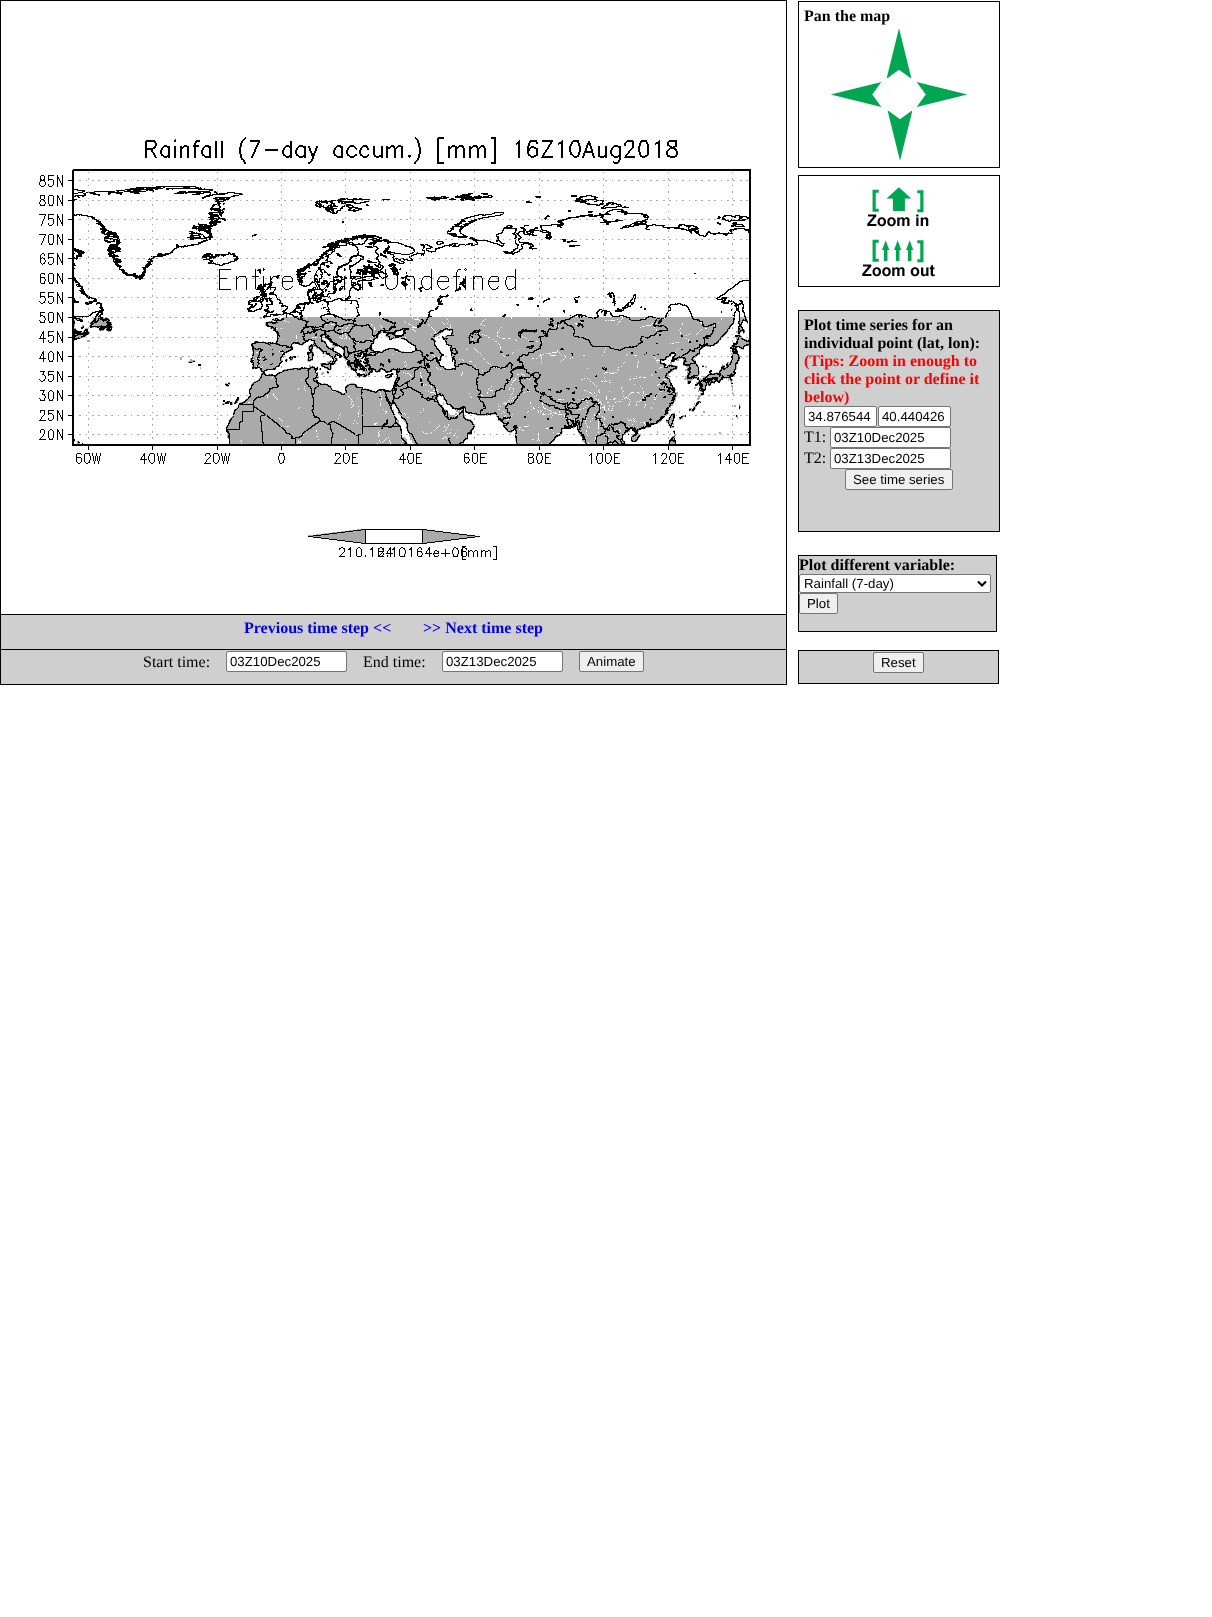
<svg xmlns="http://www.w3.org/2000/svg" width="1212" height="1617">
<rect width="100%" height="100%" fill="#fff"/>
<rect x="0.5" y="0.5" width="786" height="684" fill="none" stroke="#000"/>
<image x="39" y="137" width="712" height="423" href="media/1.png"/>
<rect x="798.5" y="1.5" width="201" height="166" fill="none" stroke="#000"/>
<text x="804" y="21" style="font-family:Liberation Serif;font-size:16px;font-weight:bold;fill:#000">Pan the map</text>
<image x="887" y="28" width="25" height="50" href="media/2.png"/>
<image x="831" y="82" width="50" height="25" href="media/3.png"/>
<image x="917" y="82" width="50" height="25" href="media/4.png"/>
<image x="887" y="111" width="25" height="50" href="media/5.png"/>
<rect x="798.5" y="175.5" width="201" height="111" fill="none" stroke="#000"/>
<image x="867" y="187" width="62" height="40" href="media/6.png"/>
<image x="862" y="239" width="73" height="38" href="media/7.png"/>
<rect x="798.5" y="310.5" width="201" height="221" fill="#cfcfcf" stroke="#000"/>
<text x="804" y="330" style="font-family:Liberation Serif;font-size:16px;font-weight:bold;fill:#000">Plot time series for an</text>
<text x="804" y="348" style="font-family:Liberation Serif;font-size:16px;font-weight:bold;fill:#000">individual point (lat, lon):</text>
<text x="804" y="366" style="font-family:Liberation Serif;font-size:16px;font-weight:bold;fill:#f00">(Tips: Zoom in enough to</text>
<text x="804" y="384" style="font-family:Liberation Serif;font-size:16px;font-weight:bold;fill:#f00">click the point or define it</text>
<text x="804" y="402" style="font-family:Liberation Serif;font-size:16px;font-weight:bold;fill:#f00">below)</text>
<rect x="804.5" y="406.5" width="72" height="20" rx="1.5" fill="#fff" stroke="#767676"/>
<text x="808" y="421" style="font-family:Liberation Sans;font-size:13.25px;fill:#000">34.876544</text>
<rect x="878.5" y="406.5" width="72" height="20" rx="1.5" fill="#fff" stroke="#767676"/>
<text x="882" y="421" style="font-family:Liberation Sans;font-size:13.25px;fill:#000">40.440426</text>
<text x="804" y="442" style="font-family:Liberation Serif;font-size:16px;fill:#000">T1:</text>
<rect x="830.5" y="427.5" width="120" height="20" rx="1.5" fill="#fff" stroke="#767676"/>
<text x="834" y="442" style="font-family:Liberation Sans;font-size:13.25px;fill:#000">03Z10Dec2025</text>
<text x="804" y="463" style="font-family:Liberation Serif;font-size:16px;fill:#000">T2:</text>
<rect x="830.5" y="448.5" width="120" height="20" rx="1.5" fill="#fff" stroke="#767676"/>
<text x="834" y="463" style="font-family:Liberation Sans;font-size:13.25px;fill:#000">03Z13Dec2025</text>
<rect x="845.5" y="469.5" width="107" height="20" rx="1.5" fill="#efefef" stroke="#767676"/>
<text x="853" y="484" style="font-family:Liberation Sans;font-size:13.25px;fill:#000">See time series</text>
<rect x="798.5" y="555.5" width="198" height="76" fill="#cfcfcf" stroke="#000"/>
<text x="799" y="570" style="font-family:Liberation Serif;font-size:16px;font-weight:bold;fill:#000">Plot different variable:</text>
<rect x="799.5" y="574.5" width="191" height="18" rx="1.5" fill="#fff" stroke="#767676"/>
<path d="M978 581.5l4 4l4-4" fill="none" stroke="#000" stroke-width="2"/>
<text x="804" y="588" style="font-family:Liberation Sans;font-size:13.25px;fill:#000">Rainfall (7-day)</text>
<rect x="799.5" y="593.5" width="38" height="20" rx="1.5" fill="#efefef" stroke="#767676"/>
<text x="807" y="608" style="font-family:Liberation Sans;font-size:13.25px;fill:#000">Plot</text>
<rect x="0.5" y="614.5" width="786" height="35" fill="#cfcfcf" stroke="#000"/>
<text x="244" y="633" style="font-family:Liberation Serif;font-size:16px;font-weight:bold;fill:#00e">Previous time step &lt;&lt;</text>
<text x="423" y="633" style="font-family:Liberation Serif;font-size:16px;font-weight:bold;fill:#00e">&gt;&gt; Next time step</text>
<rect x="1" y="650" width="785" height="34" fill="#cfcfcf"/>
<text x="143" y="667" style="font-family:Liberation Serif;font-size:16px;fill:#000">Start time:</text>
<rect x="226.5" y="651.5" width="120" height="20" rx="1.5" fill="#fff" stroke="#767676"/>
<text x="230" y="666" style="font-family:Liberation Sans;font-size:13.25px;fill:#000">03Z10Dec2025</text>
<text x="363" y="667" style="font-family:Liberation Serif;font-size:16px;fill:#000">End time:</text>
<rect x="442.5" y="651.5" width="120" height="20" rx="1.5" fill="#fff" stroke="#767676"/>
<text x="446" y="666" style="font-family:Liberation Sans;font-size:13.25px;fill:#000">03Z13Dec2025</text>
<rect x="579.5" y="651.5" width="64" height="20" rx="1.5" fill="#efefef" stroke="#767676"/>
<text x="587" y="666" style="font-family:Liberation Sans;font-size:13.25px;fill:#000">Animate</text>
<rect x="798.5" y="650.5" width="200" height="33" fill="#cfcfcf" stroke="#000"/>
<rect x="873.5" y="652.5" width="50" height="20" rx="1.5" fill="#efefef" stroke="#767676"/>
<text x="881" y="667" style="font-family:Liberation Sans;font-size:13.25px;fill:#000">Reset</text>
</svg>
